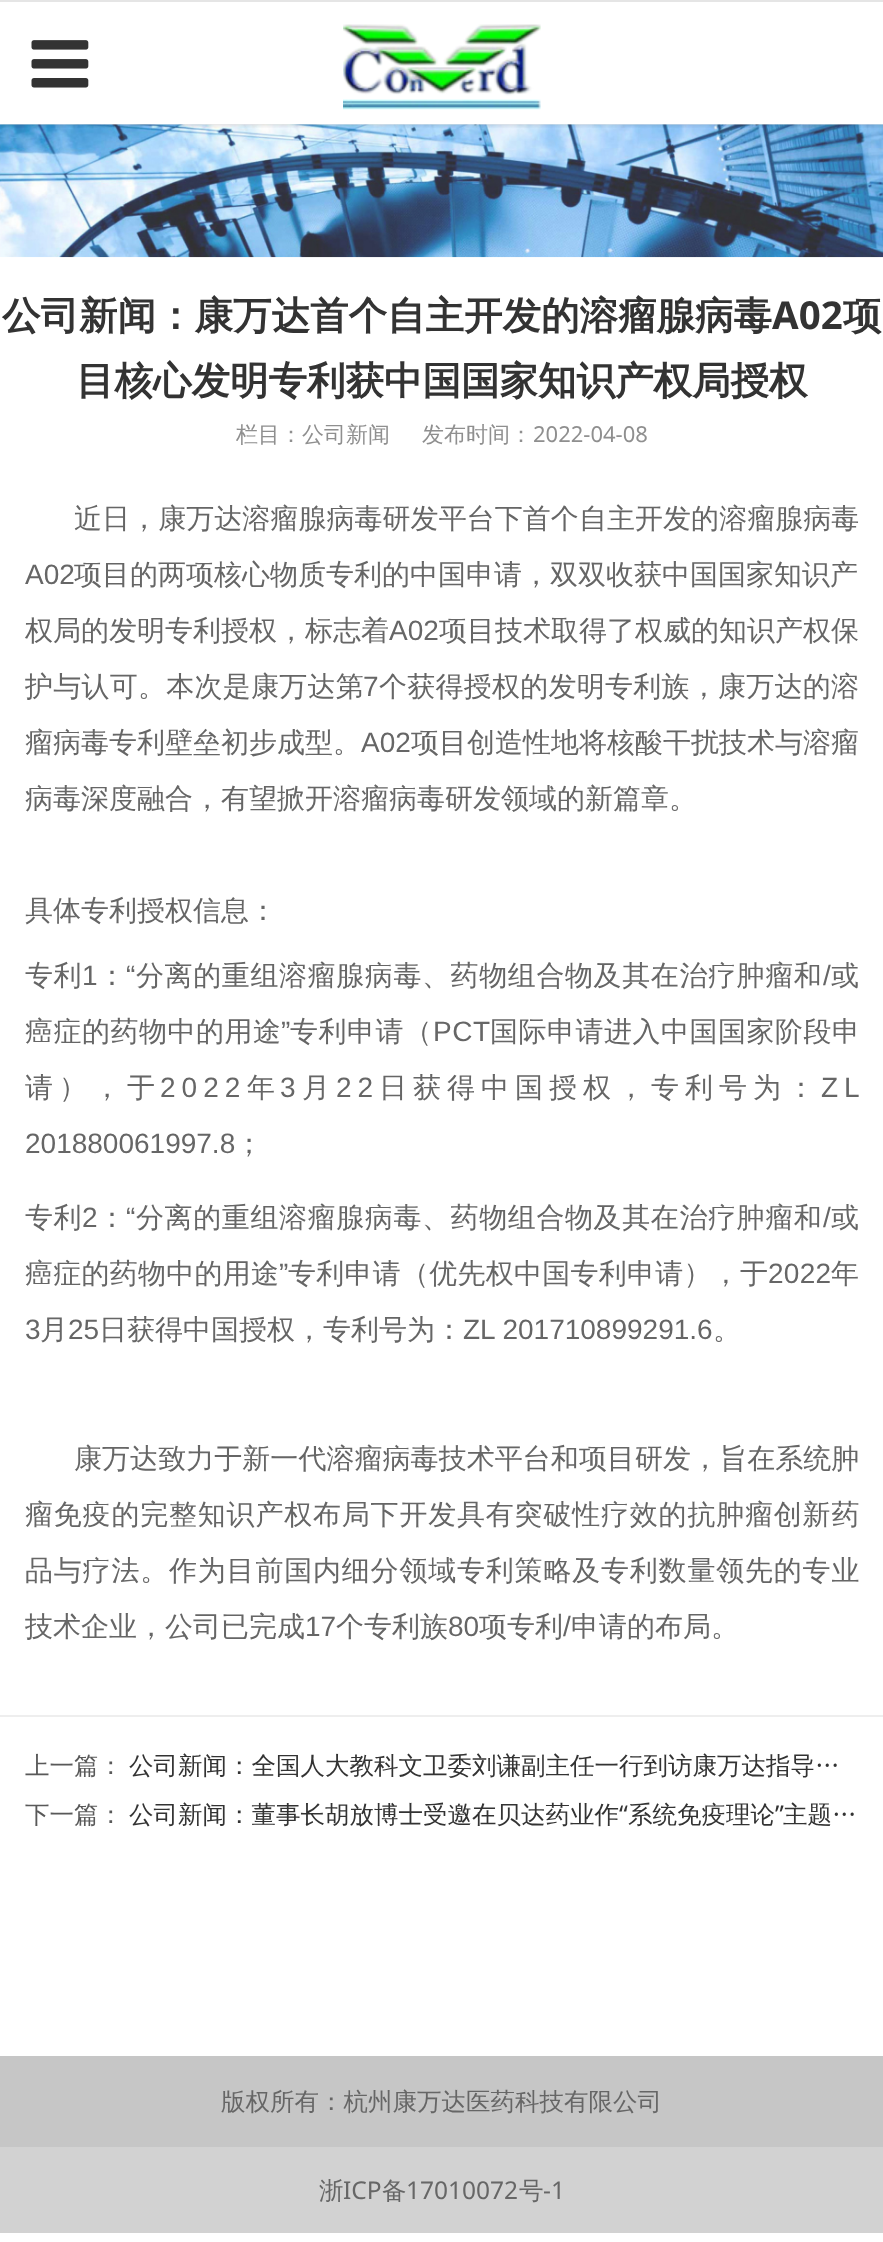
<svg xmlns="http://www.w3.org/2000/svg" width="883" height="2242">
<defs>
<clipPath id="clip1"><rect x="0" y="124" width="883" height="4"/></clipPath>
</defs>
<rect width="100%" height="100%" fill="#fff"/>
<image x="0" y="124" width="883" height="134" href="media/3.png"/>
<g clip-path="url(#clip1)">
<rect y="2" width="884" height="124" fill="#0000001a" filter="blur(2px)"/>
</g>
<rect width="883" height="2" fill="#e5e5e5"/>
<image x="31" y="40" width="58" height="48" href="media/1.png"/>
<image x="343" y="24" width="198" height="86" href="media/2.png"/>
<text x="2" y="329" style="font-family:WenQuanYi Zen Hei;font-size:38.5px;font-weight:bold;fill:#333">公司新闻：康万达首个自主开发的溶瘤腺病毒</text>
<text x="772" y="329" style="font-family:Noto Sans;font-size:38.5px;font-weight:bold;fill:#333">A02</text>
<text x="843" y="329" style="font-family:WenQuanYi Zen Hei;font-size:38.5px;font-weight:bold;fill:#333">项</text>
<text x="76" y="394" style="font-family:WenQuanYi Zen Hei;font-size:38.5px;font-weight:bold;fill:#333">目核心发明专利获中国国家知识产权局授权</text>
<text x="236" y="442" style="font-family:WenQuanYi Zen Hei;font-size:22px;font-weight:500;fill:#8f8f8f">栏目：公司新闻</text>
<text x="422" y="442" style="font-family:WenQuanYi Zen Hei;font-size:22px;font-weight:500;fill:#8f8f8f">发布时间：</text>
<text x="533" y="442" style="font-family:Noto Sans;font-size:22px;fill:#8f8f8f">2022-04-08</text>
<text x="74" y="528" style="font-family:WenQuanYi Zen Hei;font-size:28px;font-weight:500;letter-spacing:0.05px;fill:#666">近日，康万达溶瘤腺病毒研发平台下首个自主开发的溶瘤腺病毒</text>
<text x="25" y="584" style="font-family:Liberation Sans;font-size:28px;fill:#666">A02</text>
<text x="74" y="584" style="font-family:WenQuanYi Zen Hei;font-size:28px;font-weight:500;fill:#666">项目的两项核心物质专利的中国申请，双双收获中国国家知识产</text>
<text x="25" y="640" style="font-family:WenQuanYi Zen Hei;font-size:28px;font-weight:500;fill:#666">权局的发明专利授权，标志着</text>
<text x="389" y="640" style="font-family:Liberation Sans;font-size:28px;fill:#666">A02</text>
<text x="439" y="640" style="font-family:WenQuanYi Zen Hei;font-size:28px;font-weight:500;fill:#666">项目技术取得了权威的知识产权保</text>
<text x="25" y="696" style="font-family:WenQuanYi Zen Hei;font-size:28px;font-weight:500;letter-spacing:0.25px;fill:#666">护与认可。本次是康万达第</text>
<text x="363" y="696" style="font-family:Liberation Sans;font-size:28px;letter-spacing:0.25px;fill:#666">7</text>
<text x="379" y="696" style="font-family:WenQuanYi Zen Hei;font-size:28px;font-weight:500;letter-spacing:0.25px;fill:#666">个获得授权的发明专利族，康万达的溶</text>
<text x="25" y="752" style="font-family:WenQuanYi Zen Hei;font-size:28px;font-weight:500;fill:#666">瘤病毒专利壁垒初步成型。</text>
<text x="361" y="752" style="font-family:Liberation Sans;font-size:28px;fill:#666">A02</text>
<text x="411" y="752" style="font-family:WenQuanYi Zen Hei;font-size:28px;font-weight:500;fill:#666">项目创造性地将核酸干扰技术与溶瘤</text>
<text x="25" y="808" style="font-family:WenQuanYi Zen Hei;font-size:28px;font-weight:500;fill:#666">病毒深度融合，有望掀开溶瘤病毒研发领域的新篇章。</text>
<text x="25" y="920" style="font-family:WenQuanYi Zen Hei;font-size:28px;font-weight:500;fill:#666">具体专利授权信息：</text>
<text x="25" y="985" style="font-family:WenQuanYi Zen Hei;font-size:28px;font-weight:500;letter-spacing:0.6px;fill:#666">专利</text>
<text x="82" y="985" style="font-family:Liberation Sans;font-size:28px;letter-spacing:0.6px;fill:#666">1</text>
<text x="126" y="985" style="font-family:Liberation Sans;font-size:28px;letter-spacing:0.6px;fill:#666">“</text>
<text x="136" y="985" style="font-family:WenQuanYi Zen Hei;font-size:28px;font-weight:500;letter-spacing:0.6px;fill:#666">分离的重组溶瘤腺病毒、药物组合物及其在治疗肿瘤和</text>
<text x="823" y="985" style="font-family:Liberation Sans;font-size:28px;letter-spacing:0.6px;fill:#666">/</text>
<text x="831" y="985" style="font-family:WenQuanYi Zen Hei;font-size:28px;font-weight:500;letter-spacing:0.6px;fill:#666">或</text>
<text x="98" y="985" style="font-family:WenQuanYi Zen Hei;font-size:28px;font-weight:500;letter-spacing:0.6px;fill:#666">：</text>
<text x="25" y="1041" style="font-family:WenQuanYi Zen Hei;font-size:28px;font-weight:500;letter-spacing:0.5px;fill:#666">癌症的药物中的用途</text>
<text x="281" y="1041" style="font-family:Liberation Sans;font-size:28px;letter-spacing:0.5px;fill:#666">”</text>
<text x="290" y="1041" style="font-family:WenQuanYi Zen Hei;font-size:28px;font-weight:500;letter-spacing:0.5px;fill:#666">专利申请（</text>
<text x="433" y="1041" style="font-family:Liberation Sans;font-size:28px;letter-spacing:0.5px;fill:#666">PCT</text>
<text x="490" y="1041" style="font-family:WenQuanYi Zen Hei;font-size:28px;font-weight:500;letter-spacing:0.5px;fill:#666">国际申请进入中国国家阶段申</text>
<text x="25" y="1097" style="font-family:WenQuanYi Zen Hei;font-size:28px;font-weight:500;letter-spacing:6px;fill:#666">请），于</text>
<text x="160" y="1097" style="font-family:Liberation Sans;font-size:28px;letter-spacing:6px;fill:#666">2022</text>
<text x="247" y="1097" style="font-family:WenQuanYi Zen Hei;font-size:28px;font-weight:500;letter-spacing:6px;fill:#666">年</text>
<text x="280" y="1097" style="font-family:Liberation Sans;font-size:28px;letter-spacing:6px;fill:#666">3</text>
<text x="302" y="1097" style="font-family:WenQuanYi Zen Hei;font-size:28px;font-weight:500;letter-spacing:6px;fill:#666">月</text>
<text x="336" y="1097" style="font-family:Liberation Sans;font-size:28px;letter-spacing:6px;fill:#666">22</text>
<text x="379" y="1097" style="font-family:WenQuanYi Zen Hei;font-size:28px;font-weight:500;letter-spacing:6px;fill:#666">日获得中国授权，专利号为：</text>
<text x="821" y="1097" style="font-family:Liberation Sans;font-size:28px;letter-spacing:6px;fill:#666">ZL</text>
<text x="25" y="1153" style="font-family:Liberation Sans;font-size:28px;fill:#666">201880061997.8</text>
<text x="235" y="1153" style="font-family:WenQuanYi Zen Hei;font-size:28px;font-weight:500;fill:#666">；</text>
<text x="25" y="1227" style="font-family:WenQuanYi Zen Hei;font-size:28px;font-weight:500;letter-spacing:0.6px;fill:#666">专利</text>
<text x="82" y="1227" style="font-family:Liberation Sans;font-size:28px;letter-spacing:0.6px;fill:#666">2</text>
<text x="126" y="1227" style="font-family:Liberation Sans;font-size:28px;letter-spacing:0.6px;fill:#666">“</text>
<text x="136" y="1227" style="font-family:WenQuanYi Zen Hei;font-size:28px;font-weight:500;letter-spacing:0.6px;fill:#666">分离的重组溶瘤腺病毒、药物组合物及其在治疗肿瘤和</text>
<text x="823" y="1227" style="font-family:Liberation Sans;font-size:28px;letter-spacing:0.6px;fill:#666">/</text>
<text x="831" y="1227" style="font-family:WenQuanYi Zen Hei;font-size:28px;font-weight:500;letter-spacing:0.6px;fill:#666">或</text>
<text x="98" y="1227" style="font-family:WenQuanYi Zen Hei;font-size:28px;font-weight:500;letter-spacing:0.6px;fill:#666">：</text>
<text x="25" y="1283" style="font-family:WenQuanYi Zen Hei;font-size:28px;font-weight:500;letter-spacing:0.25px;fill:#666">癌症的药物中的用途</text>
<text x="279" y="1283" style="font-family:Liberation Sans;font-size:28px;letter-spacing:0.25px;fill:#666">”</text>
<text x="288" y="1283" style="font-family:WenQuanYi Zen Hei;font-size:28px;font-weight:500;letter-spacing:0.25px;fill:#666">专利申请（优先权中国专利申请），于</text>
<text x="768" y="1283" style="font-family:Liberation Sans;font-size:28px;letter-spacing:0.25px;fill:#666">2022</text>
<text x="831" y="1283" style="font-family:WenQuanYi Zen Hei;font-size:28px;font-weight:500;letter-spacing:0.25px;fill:#666">年</text>
<text x="25" y="1339" style="font-family:Liberation Sans;font-size:28px;fill:#666">3</text>
<text x="40" y="1339" style="font-family:WenQuanYi Zen Hei;font-size:28px;font-weight:500;fill:#666">月</text>
<text x="68" y="1339" style="font-family:Liberation Sans;font-size:28px;fill:#666">25</text>
<text x="99" y="1339" style="font-family:WenQuanYi Zen Hei;font-size:28px;font-weight:500;fill:#666">日获得中国授权，专利号为：</text>
<text x="463" y="1339" style="font-family:Liberation Sans;font-size:28px;fill:#666">ZL 201710899291.6</text>
<text x="713" y="1339" style="font-family:WenQuanYi Zen Hei;font-size:28px;font-weight:500;fill:#666">。</text>
<text x="74" y="1468" style="font-family:WenQuanYi Zen Hei;font-size:28px;font-weight:500;letter-spacing:0.05px;fill:#666">康万达致力于新一代溶瘤病毒技术平台和项目研发，旨在系统肿</text>
<text x="25" y="1524" style="font-family:WenQuanYi Zen Hei;font-size:28px;font-weight:500;letter-spacing:0.8px;fill:#666">瘤免疫的完整知识产权布局下开发具有突破性疗效的抗肿瘤创新药</text>
<text x="25" y="1580" style="font-family:WenQuanYi Zen Hei;font-size:28px;font-weight:500;letter-spacing:0.8px;fill:#666">品与疗法。作为目前国内细分领域专利策略及专利数量领先的专业</text>
<text x="25" y="1636" style="font-family:WenQuanYi Zen Hei;font-size:28px;font-weight:500;fill:#666">技术企业，公司已完成</text>
<text x="305" y="1636" style="font-family:Liberation Sans;font-size:28px;fill:#666">17</text>
<text x="336" y="1636" style="font-family:WenQuanYi Zen Hei;font-size:28px;font-weight:500;fill:#666">个专利族</text>
<text x="448" y="1636" style="font-family:Liberation Sans;font-size:28px;fill:#666">80</text>
<text x="479" y="1636" style="font-family:WenQuanYi Zen Hei;font-size:28px;font-weight:500;fill:#666">项专利</text>
<text x="563" y="1636" style="font-family:Liberation Sans;font-size:28px;fill:#666">/</text>
<text x="571" y="1636" style="font-family:WenQuanYi Zen Hei;font-size:28px;font-weight:500;fill:#666">申请的布局。</text>
<rect y="1715" width="883" height="2" fill="#eee"/>
<text x="25" y="1774" style="font-family:WenQuanYi Zen Hei;font-size:24.5px;font-weight:500;fill:#595959">上一篇：</text>
<text x="129" y="1774" style="font-family:WenQuanYi Zen Hei;font-size:24.5px;font-weight:500;fill:#333">公司新闻：全国人大教科文卫委刘谦副主任一行到访康万达指导…</text>
<text x="25" y="1823" style="font-family:WenQuanYi Zen Hei;font-size:24.5px;font-weight:500;fill:#595959">下一篇：</text>
<text x="129" y="1823" style="font-family:WenQuanYi Zen Hei;font-size:24.5px;font-weight:500;fill:#333">公司新闻：董事长胡放博士受邀在贝达药业作</text>
<text x="619" y="1823" style="font-family:Noto Sans;font-size:24.5px;fill:#333">“</text>
<text x="628" y="1823" style="font-family:WenQuanYi Zen Hei;font-size:24.5px;font-weight:500;fill:#333">系统免疫理论</text>
<text x="775" y="1823" style="font-family:Noto Sans;font-size:24.5px;fill:#333">”</text>
<text x="783" y="1823" style="font-family:WenQuanYi Zen Hei;font-size:24.5px;font-weight:500;fill:#333">主题…</text>
<rect y="2056" width="883" height="91" fill="#c6c6c6"/>
<text x="221" y="2110" style="font-family:WenQuanYi Zen Hei;font-size:24.5px;font-weight:500;fill:#666">版权所有：杭州康万达医药科技有限公司</text>
<rect y="2147" width="883" height="86" fill="#d2d2d2"/>
<text x="319" y="2199" style="font-family:WenQuanYi Zen Hei;font-size:24.5px;font-weight:500;fill:#666">浙</text>
<text x="343" y="2199" style="font-family:Noto Sans;font-size:24.5px;fill:#666">ICP</text>
<text x="382" y="2199" style="font-family:WenQuanYi Zen Hei;font-size:24.5px;font-weight:500;fill:#666">备</text>
<text x="406" y="2199" style="font-family:Noto Sans;font-size:24.5px;fill:#666">17010072</text>
<text x="519" y="2199" style="font-family:WenQuanYi Zen Hei;font-size:24.5px;font-weight:500;fill:#666">号</text>
<text x="543" y="2199" style="font-family:Noto Sans;font-size:24.5px;fill:#666">-1</text>
</svg>
